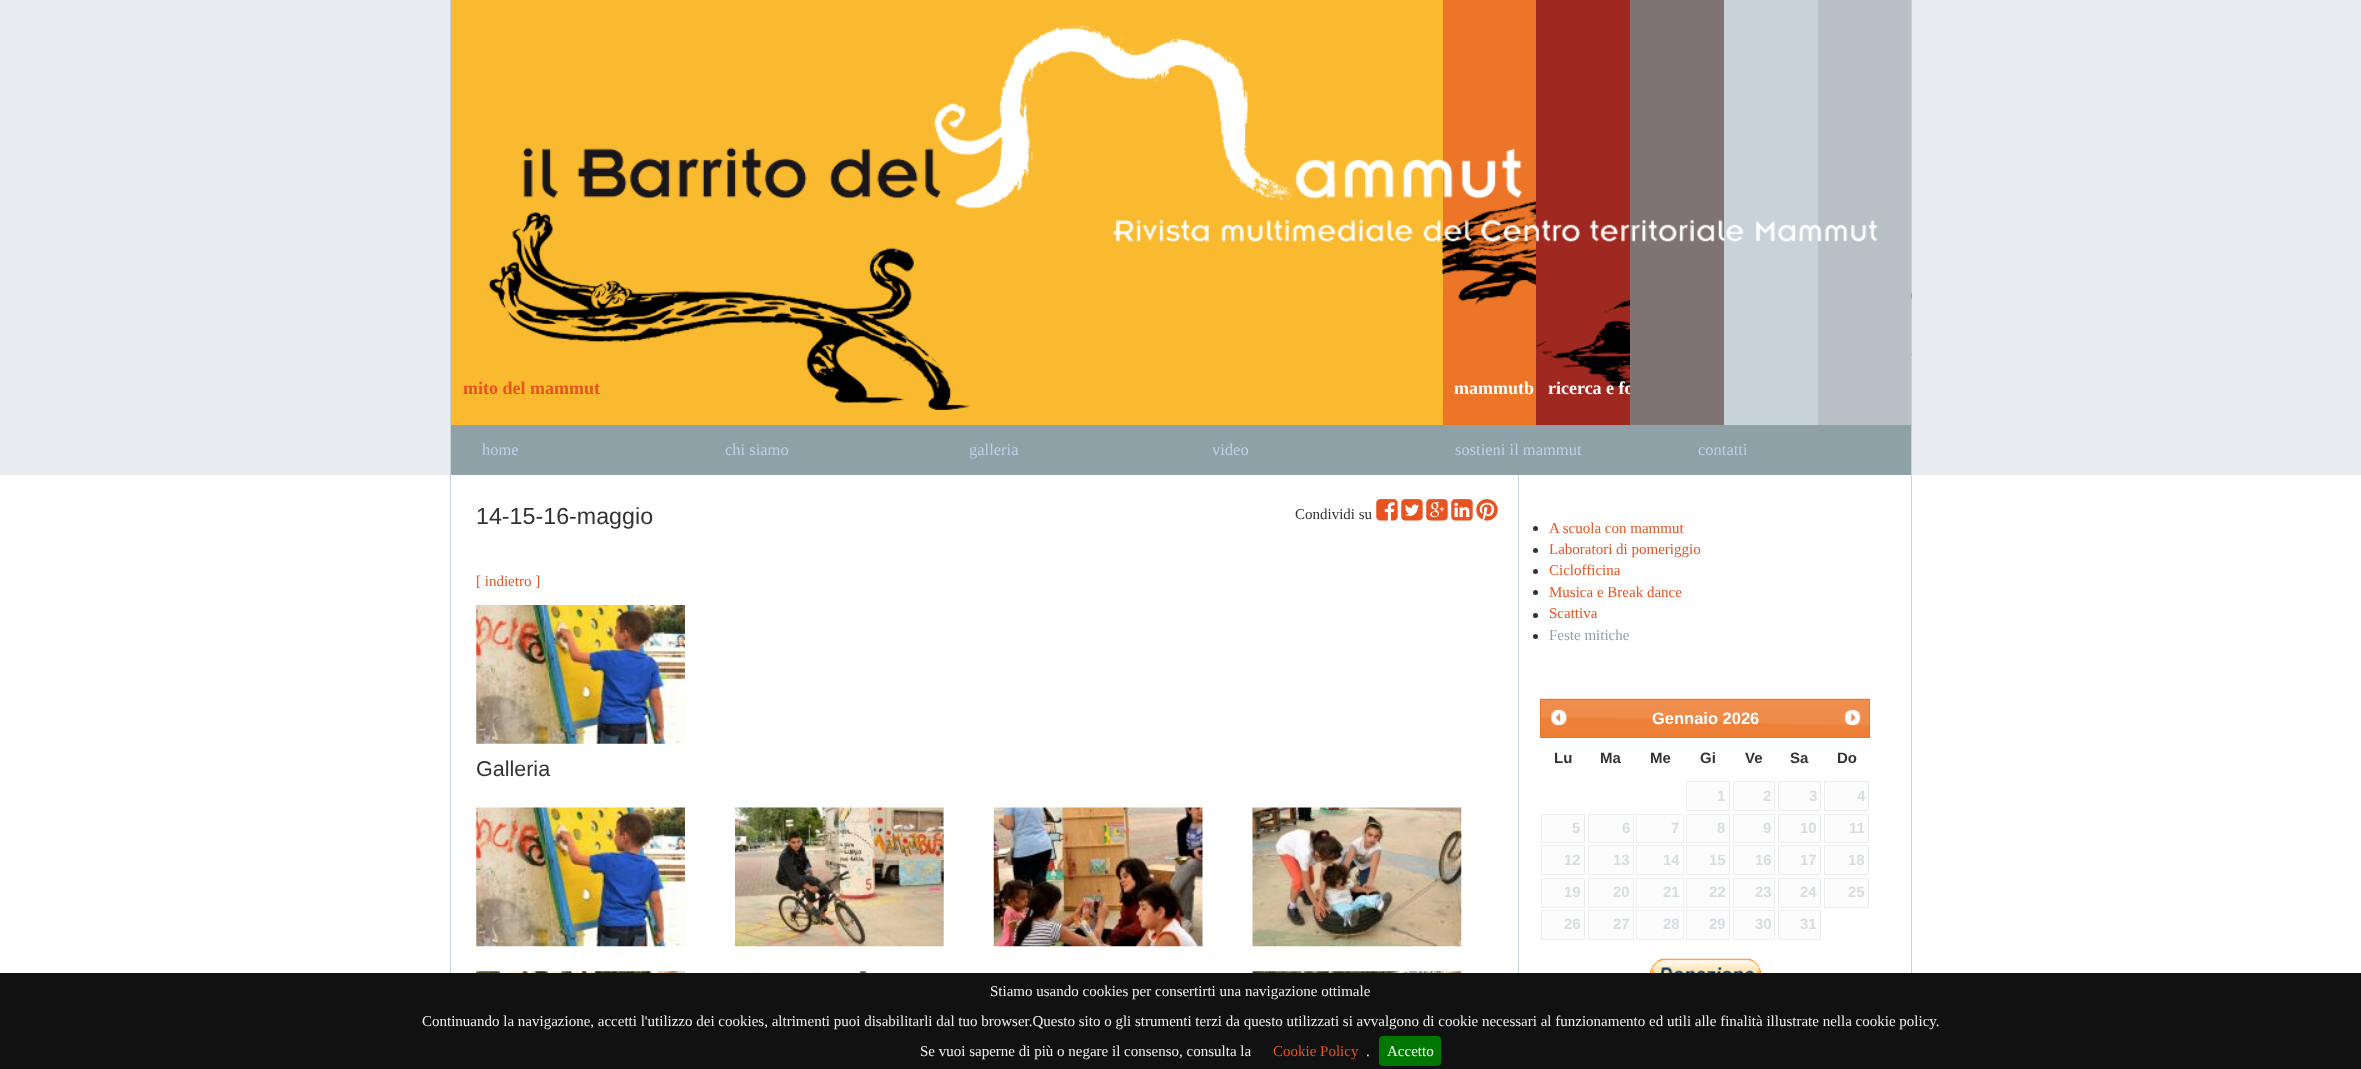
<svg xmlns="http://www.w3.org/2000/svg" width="2361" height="1069">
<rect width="100%" height="100%" fill="#fff"/>
<rect width="2361" height="475" fill="#e9edf1"/>
<rect x="1911" width="1" height="973" fill="#c7d2d8"/>
<rect x="450" width="1" height="973" fill="#c7d2d8"/>
<rect x="451" width="992" height="425" fill="#faba30"/>
<image x="488" y="212" width="482" height="198" href="media/2.png"/>
<rect x="1443" width="93" height="425" fill="#ec7527"/>
<image x="1442" y="201" width="94" height="104" href="media/3.png"/>
<rect x="1536" width="94" height="425" fill="#9f2920"/>
<image x="1536" y="292" width="376" height="95" href="media/4.png"/>
<text x="1548" y="394" style="font-family:Liberation Serif;font-size:18px;font-weight:bold;fill:#fff">ricerca e fo</text>
<rect x="1630" width="94" height="425" fill="#807373"/>
<rect x="1724" width="94" height="425" fill="#c8d3d9"/>
<rect x="1818" width="93" height="425" fill="#b6c0c5"/>
<image x="523" y="25" width="1355" height="217" href="media/1.png"/>
<text x="463" y="394" style="font-family:Liberation Serif;font-size:18px;font-weight:bold;fill:#e75321">mito del mammut</text>
<text x="1454" y="394" style="font-family:Liberation Serif;font-size:18px;font-weight:bold;fill:#fff">mammutb</text>
<rect x="451" y="425" width="1460" height="50" fill="#8ea1a7"/>
<text x="482" y="455" style="font-family:Liberation Serif;font-size:16.5px;fill:#bed0e7">home</text>
<text x="725" y="455" style="font-family:Liberation Serif;font-size:16.5px;fill:#bed0e7">chi siamo</text>
<text x="969" y="455" style="font-family:Liberation Serif;font-size:16.5px;fill:#bed0e7">galleria</text>
<text x="1212" y="455" style="font-family:Liberation Serif;font-size:16.5px;fill:#bed0e7">video</text>
<text x="1455" y="455" style="font-family:Liberation Serif;font-size:16.5px;fill:#bed0e7">sostieni il mammut</text>
<text x="1698" y="455" style="font-family:Liberation Serif;font-size:16.5px;fill:#bed0e7">contatti</text>
<rect x="1518" y="475" width="1" height="498" fill="#c7d2d8"/>
<text x="476" y="524" style="font-family:Liberation Sans;font-size:23.25px;fill:#333">14-15-16-maggio</text>
<text x="1295" y="519" style="font-family:Liberation Serif;font-size:15px;fill:#333">Condividi su</text>
<image x="1376" y="499" width="22" height="22" href="media/5.png"/>
<image x="1401" y="499" width="22" height="22" href="media/6.png"/>
<image x="1426" y="499" width="22" height="22" href="media/7.png"/>
<image x="1451" y="499" width="22" height="22" href="media/8.png"/>
<image x="1476" y="499" width="22" height="22" href="media/9.png"/>
<text x="476" y="586" style="font-family:Liberation Serif;font-size:15px;fill:#e75321">[ indietro ]</text>
<image x="476" y="605" width="209" height="139" href="media/10.png"/>
<text x="476" y="776" style="font-family:Liberation Sans;font-size:21.5px;fill:#333">Galleria</text>
<image x="476" y="807" width="209" height="140" href="media/11.png"/>
<image x="735" y="807" width="209" height="140" href="media/12.png"/>
<image x="993" y="807" width="210" height="140" href="media/13.png"/>
<image x="1252" y="807" width="210" height="140" href="media/14.png"/>
<image x="476" y="971" width="209" height="2" href="media/15.png"/>
<image x="735" y="971" width="209" height="2" href="media/16.png"/>
<image x="993" y="972" width="210" height="1" href="media/17.png"/>
<image x="1252" y="971" width="210" height="2" href="media/18.png"/>
<circle cx="1535.5" cy="528.5" r="2.5" fill="#333"/>
<text x="1549" y="533" style="font-family:Liberation Serif;font-size:15px;fill:#e75321">A scuola con mammut</text>
<circle cx="1535.5" cy="550.5" r="2.5" fill="#333"/>
<text x="1549" y="554" style="font-family:Liberation Serif;font-size:15px;fill:#e75321">Laboratori di pomeriggio</text>
<circle cx="1535.5" cy="571.5" r="2.5" fill="#333"/>
<text x="1549" y="575" style="font-family:Liberation Serif;font-size:15px;fill:#e75321">Ciclofficina</text>
<circle cx="1535.5" cy="592.5" r="2.5" fill="#333"/>
<text x="1549" y="597" style="font-family:Liberation Serif;font-size:15px;fill:#e75321">Musica e Break dance</text>
<circle cx="1535.5" cy="615.5" r="2.5" fill="#333"/>
<text x="1549" y="618" style="font-family:Liberation Serif;font-size:15px;fill:#e75321">Scattiva</text>
<circle cx="1535.5" cy="636.5" r="2.5" fill="#333"/>
<text x="1549" y="640" style="font-family:Liberation Serif;font-size:15px;fill:#8ea1a7">Feste mitiche</text>
<image x="1540" y="698" width="330" height="39" href="media/19.png"/>
<rect x="1540.5" y="699.5" width="329" height="38" fill="none" stroke="#ec7527"/>
<image x="1551" y="709" width="16" height="17" href="media/20.png"/>
<text x="1652" y="724" style="font-family:Liberation Sans;font-size:16.5px;font-weight:bold;fill:#fff">Gennaio 2026</text>
<image x="1844" y="709" width="17" height="17" href="media/21.png"/>
<text x="1554" y="763" style="font-family:Liberation Sans;font-size:15px;font-weight:bold;fill:#333">Lu</text>
<text x="1600" y="763" style="font-family:Liberation Sans;font-size:15px;font-weight:bold;fill:#333">Ma</text>
<text x="1650" y="763" style="font-family:Liberation Sans;font-size:15px;font-weight:bold;fill:#333">Me</text>
<text x="1700" y="763" style="font-family:Liberation Sans;font-size:15px;font-weight:bold;fill:#333">Gi</text>
<text x="1745" y="763" style="font-family:Liberation Sans;font-size:15px;font-weight:bold;fill:#333">Ve</text>
<text x="1790" y="763" style="font-family:Liberation Sans;font-size:15px;font-weight:bold;fill:#333">Sa</text>
<text x="1837" y="763" style="font-family:Liberation Sans;font-size:15px;font-weight:bold;fill:#333">Do</text>
<rect x="1686.5" y="781.5" width="43" height="29" fill="#fcfcfc" stroke="#ededed"/>
<text x="1717" y="801" style="font-family:Liberation Sans;font-size:15px;font-weight:bold;fill:#d7dee0">1</text>
<rect x="1733.5" y="781.5" width="41" height="29" fill="#fcfcfc" stroke="#ededed"/>
<text x="1763" y="801" style="font-family:Liberation Sans;font-size:15px;font-weight:bold;fill:#d7dee0">2</text>
<rect x="1778.5" y="781.5" width="42" height="29" fill="#fcfcfc" stroke="#ededed"/>
<text x="1809" y="801" style="font-family:Liberation Sans;font-size:15px;font-weight:bold;fill:#d7dee0">3</text>
<rect x="1824.5" y="781.5" width="44" height="29" fill="#fcfcfc" stroke="#ededed"/>
<text x="1857" y="801" style="font-family:Liberation Sans;font-size:15px;font-weight:bold;fill:#d7dee0">4</text>
<rect x="1541.5" y="814.5" width="43" height="28" fill="#fcfcfc" stroke="#ededed"/>
<text x="1572" y="833" style="font-family:Liberation Sans;font-size:15px;font-weight:bold;fill:#d7dee0">5</text>
<rect x="1588.5" y="814.5" width="45" height="28" fill="#fcfcfc" stroke="#ededed"/>
<text x="1622" y="833" style="font-family:Liberation Sans;font-size:15px;font-weight:bold;fill:#d7dee0">6</text>
<rect x="1636.5" y="814.5" width="47" height="28" fill="#fcfcfc" stroke="#ededed"/>
<text x="1671" y="833" style="font-family:Liberation Sans;font-size:15px;font-weight:bold;fill:#d7dee0">7</text>
<rect x="1686.5" y="814.5" width="43" height="28" fill="#fcfcfc" stroke="#ededed"/>
<text x="1717" y="833" style="font-family:Liberation Sans;font-size:15px;font-weight:bold;fill:#d7dee0">8</text>
<rect x="1733.5" y="814.5" width="41" height="28" fill="#fcfcfc" stroke="#ededed"/>
<text x="1763" y="833" style="font-family:Liberation Sans;font-size:15px;font-weight:bold;fill:#d7dee0">9</text>
<rect x="1778.5" y="814.5" width="42" height="28" fill="#fcfcfc" stroke="#ededed"/>
<text x="1800" y="833" style="font-family:Liberation Sans;font-size:15px;font-weight:bold;fill:#d7dee0">10</text>
<rect x="1824.5" y="814.5" width="44" height="28" fill="#fcfcfc" stroke="#ededed"/>
<text x="1849" y="833" style="font-family:Liberation Sans;font-size:15px;font-weight:bold;fill:#d7dee0">11</text>
<rect x="1541.5" y="845.5" width="43" height="29" fill="#fcfcfc" stroke="#ededed"/>
<text x="1564" y="865" style="font-family:Liberation Sans;font-size:15px;font-weight:bold;fill:#d7dee0">12</text>
<rect x="1588.5" y="845.5" width="45" height="29" fill="#fcfcfc" stroke="#ededed"/>
<text x="1613" y="865" style="font-family:Liberation Sans;font-size:15px;font-weight:bold;fill:#d7dee0">13</text>
<rect x="1636.5" y="845.5" width="47" height="29" fill="#fcfcfc" stroke="#ededed"/>
<text x="1663" y="865" style="font-family:Liberation Sans;font-size:15px;font-weight:bold;fill:#d7dee0">14</text>
<rect x="1686.5" y="845.5" width="43" height="29" fill="#fcfcfc" stroke="#ededed"/>
<text x="1709" y="865" style="font-family:Liberation Sans;font-size:15px;font-weight:bold;fill:#d7dee0">15</text>
<rect x="1733.5" y="845.5" width="41" height="29" fill="#fcfcfc" stroke="#ededed"/>
<text x="1755" y="865" style="font-family:Liberation Sans;font-size:15px;font-weight:bold;fill:#d7dee0">16</text>
<rect x="1778.5" y="845.5" width="42" height="29" fill="#fcfcfc" stroke="#ededed"/>
<text x="1800" y="865" style="font-family:Liberation Sans;font-size:15px;font-weight:bold;fill:#d7dee0">17</text>
<rect x="1824.5" y="845.5" width="44" height="29" fill="#fcfcfc" stroke="#ededed"/>
<text x="1848" y="865" style="font-family:Liberation Sans;font-size:15px;font-weight:bold;fill:#d7dee0">18</text>
<rect x="1541.5" y="878.5" width="43" height="29" fill="#fcfcfc" stroke="#ededed"/>
<text x="1564" y="897" style="font-family:Liberation Sans;font-size:15px;font-weight:bold;fill:#d7dee0">19</text>
<rect x="1588.5" y="878.5" width="45" height="29" fill="#fcfcfc" stroke="#ededed"/>
<text x="1613" y="897" style="font-family:Liberation Sans;font-size:15px;font-weight:bold;fill:#d7dee0">20</text>
<rect x="1636.5" y="878.5" width="47" height="29" fill="#fcfcfc" stroke="#ededed"/>
<text x="1663" y="897" style="font-family:Liberation Sans;font-size:15px;font-weight:bold;fill:#d7dee0">21</text>
<rect x="1686.5" y="878.5" width="43" height="29" fill="#fcfcfc" stroke="#ededed"/>
<text x="1709" y="897" style="font-family:Liberation Sans;font-size:15px;font-weight:bold;fill:#d7dee0">22</text>
<rect x="1733.5" y="878.5" width="41" height="29" fill="#fcfcfc" stroke="#ededed"/>
<text x="1755" y="897" style="font-family:Liberation Sans;font-size:15px;font-weight:bold;fill:#d7dee0">23</text>
<rect x="1778.5" y="878.5" width="42" height="29" fill="#fcfcfc" stroke="#ededed"/>
<text x="1800" y="897" style="font-family:Liberation Sans;font-size:15px;font-weight:bold;fill:#d7dee0">24</text>
<rect x="1824.5" y="878.5" width="44" height="29" fill="#fcfcfc" stroke="#ededed"/>
<text x="1848" y="897" style="font-family:Liberation Sans;font-size:15px;font-weight:bold;fill:#d7dee0">25</text>
<rect x="1541.5" y="910.5" width="43" height="29" fill="#fcfcfc" stroke="#ededed"/>
<text x="1564" y="929" style="font-family:Liberation Sans;font-size:15px;font-weight:bold;fill:#d7dee0">26</text>
<rect x="1588.5" y="910.5" width="45" height="29" fill="#fcfcfc" stroke="#ededed"/>
<text x="1613" y="929" style="font-family:Liberation Sans;font-size:15px;font-weight:bold;fill:#d7dee0">27</text>
<rect x="1636.5" y="910.5" width="47" height="29" fill="#fcfcfc" stroke="#ededed"/>
<text x="1663" y="929" style="font-family:Liberation Sans;font-size:15px;font-weight:bold;fill:#d7dee0">28</text>
<rect x="1686.5" y="910.5" width="43" height="29" fill="#fcfcfc" stroke="#ededed"/>
<text x="1709" y="929" style="font-family:Liberation Sans;font-size:15px;font-weight:bold;fill:#d7dee0">29</text>
<rect x="1733.5" y="910.5" width="41" height="29" fill="#fcfcfc" stroke="#ededed"/>
<text x="1755" y="929" style="font-family:Liberation Sans;font-size:15px;font-weight:bold;fill:#d7dee0">30</text>
<rect x="1778.5" y="910.5" width="42" height="29" fill="#fcfcfc" stroke="#ededed"/>
<text x="1800" y="929" style="font-family:Liberation Sans;font-size:15px;font-weight:bold;fill:#d7dee0">31</text>
<image x="1649" y="958" width="113" height="15" href="media/22.png"/>
<rect y="973" width="2361" height="96" fill="#111"/>
<text x="990" y="996" style="font-family:Liberation Serif;font-size:15px;fill:#eee">Stiamo usando cookies per consertirti una navigazione ottimale</text>
<text x="422" y="1026" style="font-family:Liberation Serif;font-size:15px;fill:#eee">Continuando la navigazione, accetti l'utilizzo dei cookies, altrimenti puoi disabilitarli dal tuo browser.Questo sito o gli strumenti terzi da questo utilizzati si avvalgono di cookie necessari al funzionamento ed utili alle finalità illustrate nella cookie policy.</text>
<text x="920" y="1056" style="font-family:Liberation Serif;font-size:15px;fill:#eee">Se vuoi saperne di più o negare il consenso, consulta la</text>
<text x="1273" y="1056" style="font-family:Liberation Serif;font-size:15px;fill:#e75321">Cookie Policy</text>
<text x="1366" y="1056" style="font-family:Liberation Serif;font-size:15px;fill:#eee">.</text>
<rect x="1379" y="1036" width="62" height="30" rx="4" fill="#070"/>
<text x="1387" y="1056" style="font-family:Liberation Serif;font-size:15px;fill:#fff">Accetto</text>
</svg>
